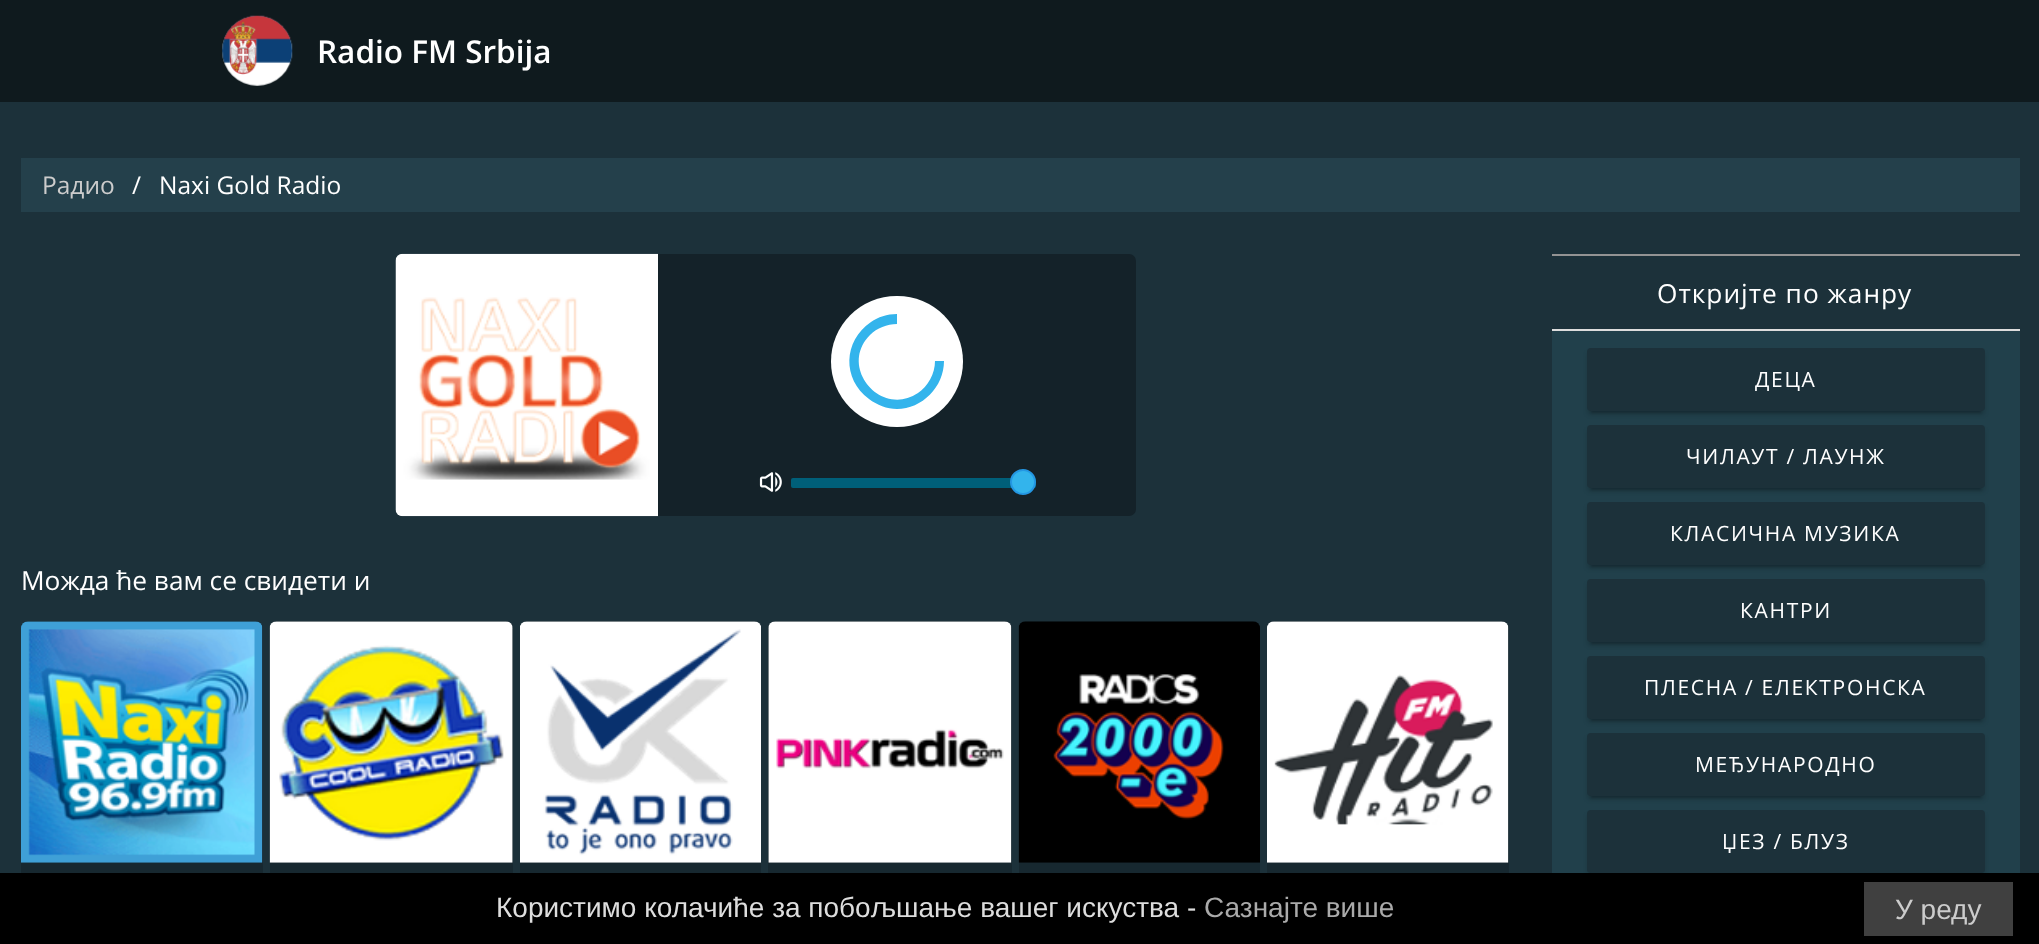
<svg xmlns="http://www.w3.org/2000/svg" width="2039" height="944">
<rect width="100%" height="100%" fill="#1c313a"/>
<rect width="2039" height="102" fill="#0f1a1e"/>
<image x="222" y="15" width="71" height="71" href="media/1.png"/>
<text x="317" y="63" style="font-family:Open Sans;font-size:31.5px;font-weight:600;fill:#fff">Radio FM Srbija</text>
<rect x="21" y="158" width="1999" height="54" fill="#24404b"/>
<text x="42" y="194" style="font-family:Open Sans;font-size:24.5px;fill:#ccc">Радио</text>
<text x="132" y="194" style="font-family:Open Sans;font-size:24.5px;fill:#fff">/</text>
<text x="159" y="194" style="font-family:Open Sans;font-size:24.5px;fill:#fff">Naxi Gold Radio</text>
<rect x="396" y="254" width="740" height="262" rx="7" fill="#142229"/>
<image x="395" y="253" width="263" height="264" href="media/2.png"/>
<rect x="831" y="296" width="132" height="131" rx="65.5" fill="#fff"/>
<path d="M897 409c25 0 47-22 47-48h-9c0 13-7 25-17 32c-37 25-80-26-48-58c7-7 17-11 27-11v-10c-10 0-19 3-26 8c-28 19-29 57-2 77c8 6 18 10 28 10z" fill="#33b4ec"/>
<image x="759" y="472" width="23" height="20" href="media/3.png"/>
<rect x="791" y="478" width="245" height="10" rx="2" fill="#005f79"/>
<circle cx="1023" cy="482" r="12" fill="#33b4ec" stroke="#2497e3" stroke-width="2"/>
<text x="21" y="590" style="font-family:Open Sans;font-size:26.25px;fill:#fff">Можда ће вам се свидети и</text>
<rect x="21" y="621" width="242" height="307" rx="7" fill="#172830"/>
<image x="21" y="621" width="242" height="242" href="media/4.png"/>
<rect x="270" y="621" width="243" height="307" rx="7" fill="#172830"/>
<image x="269" y="621" width="244" height="242" href="media/5.png"/>
<rect x="520" y="621" width="241" height="307" rx="7" fill="#172830"/>
<image x="520" y="621" width="241" height="242" href="media/6.png"/>
<rect x="768" y="621" width="244" height="307" rx="7" fill="#172830"/>
<image x="768" y="621" width="244" height="242" href="media/7.png"/>
<rect x="1019" y="621" width="241" height="307" rx="7" fill="#172830"/>
<image x="1018" y="621" width="242" height="242" href="media/8.png"/>
<rect x="1267" y="621" width="242" height="307" rx="7" fill="#172830"/>
<image x="1267" y="621" width="242" height="242" href="media/9.png"/>
<rect x="1552" y="254" width="468" height="2" fill="#939393"/>
<rect x="1552" y="329" width="468" height="2" fill="#ddd"/>
<text x="1657" y="303" style="font-family:Open Sans;font-size:26.25px;letter-spacing:1px;fill:#fff">Откријте по жанру</text>
<rect x="1552" y="331" width="468" height="542" fill="#21404b"/>
<rect x="1587" y="352" width="398" height="63" rx="4" fill="#00000024" filter="blur(2px)"/>
<rect x="1591" y="357" width="390" height="56" fill="#00000033" filter="blur(1px)"/>
<rect x="1587" y="348" width="398" height="63" rx="4" fill="#1c313a"/>
<text x="1755" y="387" style="font-family:Open Sans;font-size:21px;letter-spacing:1.7px;fill:#fff">ДЕЦА</text>
<rect x="1587" y="429" width="398" height="63" rx="4" fill="#00000024" filter="blur(2px)"/>
<rect x="1591" y="434" width="390" height="56" fill="#00000033" filter="blur(1px)"/>
<rect x="1587" y="425" width="398" height="63" rx="4" fill="#1c313a"/>
<text x="1686" y="464" style="font-family:Open Sans;font-size:21px;letter-spacing:1.7px;fill:#fff">ЧИЛАУТ / ЛАУНЖ</text>
<rect x="1587" y="506" width="398" height="63" rx="4" fill="#00000024" filter="blur(2px)"/>
<rect x="1591" y="511" width="390" height="56" fill="#00000033" filter="blur(1px)"/>
<rect x="1587" y="502" width="398" height="63" rx="4" fill="#1c313a"/>
<text x="1670" y="541" style="font-family:Open Sans;font-size:21px;letter-spacing:1.7px;fill:#fff">КЛАСИЧНА МУЗИКА</text>
<rect x="1587" y="583" width="398" height="63" rx="4" fill="#00000024" filter="blur(2px)"/>
<rect x="1591" y="588" width="390" height="56" fill="#00000033" filter="blur(1px)"/>
<rect x="1587" y="579" width="398" height="63" rx="4" fill="#1c313a"/>
<text x="1740" y="618" style="font-family:Open Sans;font-size:21px;letter-spacing:1.7px;fill:#fff">КАНТРИ</text>
<rect x="1587" y="660" width="398" height="63" rx="4" fill="#00000024" filter="blur(2px)"/>
<rect x="1591" y="665" width="390" height="56" fill="#00000033" filter="blur(1px)"/>
<rect x="1587" y="656" width="398" height="63" rx="4" fill="#1c313a"/>
<text x="1644" y="695" style="font-family:Open Sans;font-size:21px;letter-spacing:1.7px;fill:#fff">ПЛЕСНА / ЕЛЕКТРОНСКА</text>
<rect x="1587" y="737" width="398" height="63" rx="4" fill="#00000024" filter="blur(2px)"/>
<rect x="1591" y="742" width="390" height="56" fill="#00000033" filter="blur(1px)"/>
<rect x="1587" y="733" width="398" height="63" rx="4" fill="#1c313a"/>
<text x="1695" y="772" style="font-family:Open Sans;font-size:21px;letter-spacing:1.7px;fill:#fff">МЕЂУНАРОДНО</text>
<rect x="1587" y="814" width="398" height="63" rx="4" fill="#00000024" filter="blur(2px)"/>
<rect x="1587" y="810" width="398" height="63" rx="4" fill="#1c313a"/>
<text x="1722" y="849" style="font-family:Open Sans;font-size:21px;letter-spacing:1.7px;fill:#fff">ЏЕЗ / БЛУЗ</text>
<rect y="873" width="2039" height="71" fill="#000"/>
<text x="496" y="917" style="font-family:Liberation Sans;font-size:28px;fill:#ddd">Користимо колачиће за побољшање вашег искуства -</text>
<text x="1204" y="917" style="font-family:Liberation Sans;font-size:28px;fill:#aaa">Сазнајте више</text>
<rect x="1864" y="882" width="149" height="54" fill="#404040"/>
<text x="1895" y="919" style="font-family:Liberation Sans;font-size:28px;fill:#ccc">У реду</text>
</svg>
